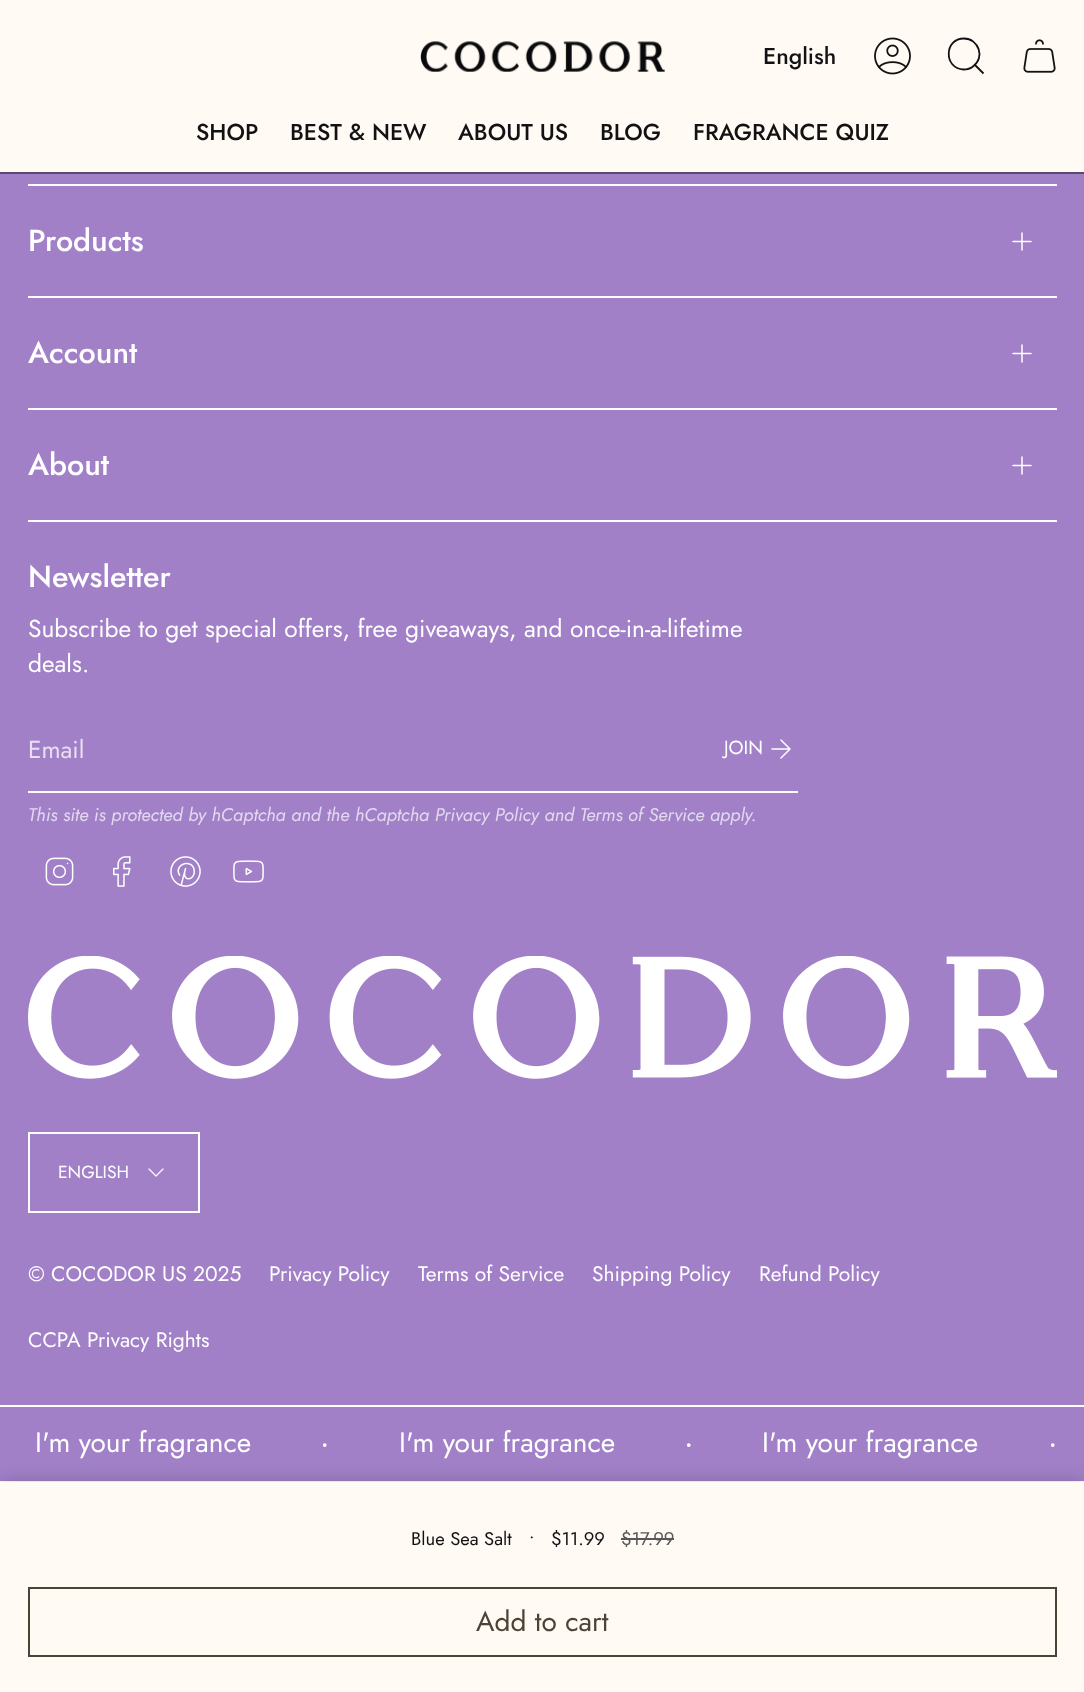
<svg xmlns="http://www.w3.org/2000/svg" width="1084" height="1692">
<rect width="100%" height="100%" fill="#a180c8"/>
<rect width="1084" height="172" fill="#fffbf4"/>
<image x="420" y="41" width="245" height="31" href="media/1.png"/>
<text x="763" y="64" style="font-family:Jost;font-size:23px;font-weight:500;fill:#121214">English</text>
<image x="874" y="37" width="37" height="38" href="media/2.png"/>
<path d="M964 38.5c14.5 0 21.5 19 9 28c-2.5 2-6 3-9.5 3c-20-1-19.5-31 .5-31zm11 26.5l8.5 8.5" fill="none" stroke="#121214" stroke-width="1.8"/>
<image x="1023" y="39" width="33" height="34" href="media/3.png"/>
<text x="196" y="140" style="font-family:Jost;font-size:23px;font-weight:500;fill:#121214">SHOP</text>
<text x="290" y="140" style="font-family:Jost;font-size:23px;font-weight:500;fill:#121214">BEST &amp; NEW</text>
<text x="458" y="140" style="font-family:Jost;font-size:23px;font-weight:500;fill:#121214">ABOUT US</text>
<text x="600" y="140" style="font-family:Jost;font-size:23px;font-weight:500;fill:#121214">BLOG</text>
<text x="693" y="140" style="font-family:Jost;font-size:23px;font-weight:500;fill:#121214">FRAGRANCE QUIZ</text>
<rect y="172" width="1084" height="2" fill="#5a496e"/>
<rect y="1481" width="1084" height="1" fill="#fff"/>
<rect y="1482" width="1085" height="210" fill="#00000033" filter="blur(9px)"/>
<rect y="1482" width="1084" height="210" fill="#fffbf4"/>
<text x="411" y="1545" style="font-family:Jost;font-size:18.4px;fill:#121214">Blue Sea Salt</text>
<text x="529" y="1545" style="font-family:Jost;font-size:18.4px;fill:#121214">•</text>
<text x="551" y="1545" style="font-family:Jost;font-size:18.4px;fill:#121214">$11.99</text>
<text x="621" y="1545" style="font-family:Jost;font-size:18.4px;fill:#595857">$17.99</text>
<rect x="621" y="1538" width="53" height="2" fill="#595857"/>
<rect x="29" y="1588" width="1027" height="68" fill="none" stroke="#4c4236" stroke-width="2"/>
<text x="476" y="1631" style="font-family:Jost;font-size:28px;fill:#4c4236">Add to cart</text>
<rect x="28" y="184" width="1029" height="2" fill="#fff"/>
<text x="28" y="251" style="font-family:Jost;font-size:30.5px;font-weight:500;fill:#fff">Products</text>
<path d="M1013 241.5h9m9 0h-9m0 0v-8.5m0 8.5v8.5" fill="none" stroke="#fff" stroke-width="1.5" stroke-linecap="round" stroke-linejoin="round"/>
<rect x="28" y="296" width="1029" height="2" fill="#fff"/>
<text x="28" y="363" style="font-family:Jost;font-size:30.5px;font-weight:500;fill:#fff">Account</text>
<path d="M1013 353.5h9m9 0h-9m0 0v-8.5m0 8.5v8.5" fill="none" stroke="#fff" stroke-width="1.5" stroke-linecap="round" stroke-linejoin="round"/>
<rect x="28" y="408" width="1029" height="2" fill="#fff"/>
<rect x="28" y="520" width="1029" height="2" fill="#fff"/>
<text x="28" y="475" style="font-family:Jost;font-size:30.5px;font-weight:500;fill:#fff">About</text>
<path d="M1013 465.5h9m9 0h-9m0 0v-8.5m0 8.5v8.5" fill="none" stroke="#fff" stroke-width="1.5" stroke-linecap="round" stroke-linejoin="round"/>
<text x="28" y="587" style="font-family:Jost;font-size:30.5px;font-weight:500;fill:#fff">Newsletter</text>
<text x="28" y="637" style="font-family:Jost;font-size:24.5px;fill:#fff">Subscribe to get special offers, free giveaways, and once-in-a-lifetime</text>
<text x="28" y="672" style="font-family:Jost;font-size:24.5px;fill:#fff">deals.</text>
<rect x="28" y="791" width="770" height="2" fill="#fff"/>
<text x="28" y="758" style="font-family:Jost;font-size:24.5px;fill:#e8dff1">Email</text>
<text x="724" y="754" style="font-family:Jost;font-size:19px;fill:#fff">JOIN</text>
<path d="M772 749h18m0 0l-9-9m9 9l-9 9" fill="none" stroke="#fff" stroke-width="1.5" stroke-linecap="round" stroke-linejoin="round"/>
<text x="28" y="821" style="font-family:Jost;font-size:18.4px;font-style:italic;fill:#e3d9ef">This site is protected by hCaptcha and the hCaptcha Privacy Policy and Terms of Service apply.</text>
<image x="45" y="857" width="29" height="29" href="media/4.png"/>
<image x="113" y="856" width="18" height="31" href="media/5.png"/>
<image x="170" y="856" width="31" height="31" href="media/6.png"/>
<image x="233" y="860" width="31" height="23" href="media/7.png"/>
<image x="28" y="956" width="1029" height="123" href="media/8.png"/>
<rect x="29" y="1133" width="170" height="79" fill="none" stroke="#fff" stroke-width="2"/>
<text x="58" y="1178" style="font-family:Jost;font-size:17.5px;fill:#fff">ENGLISH</text>
<path d="M149 1169l7 7l7-7" fill="none" stroke="#fff" stroke-width="1.2" stroke-linecap="round" stroke-linejoin="round"/>
<text x="28" y="1281" style="font-family:Jost;font-size:21px;fill:#fff">© COCODOR US 2025</text>
<text x="269" y="1281" style="font-family:Jost;font-size:21px;fill:#fff">Privacy Policy</text>
<text x="418" y="1281" style="font-family:Jost;font-size:21px;fill:#fff">Terms of Service</text>
<text x="592" y="1281" style="font-family:Jost;font-size:21px;fill:#fff">Shipping Policy</text>
<text x="759" y="1281" style="font-family:Jost;font-size:21px;fill:#fff">Refund Policy</text>
<text x="28" y="1347" style="font-family:Jost;font-size:21px;fill:#fff">CCPA Privacy Rights</text>
<rect y="1405" width="1084" height="2" fill="#fff"/>
<text x="35" y="1452" style="font-family:Jost;font-size:28px;fill:#fff">I'm your fragrance</text>
<text x="321" y="1452" style="font-family:Noto Sans;font-size:28px;fill:#fff">‧</text>
<text x="399" y="1452" style="font-family:Jost;font-size:28px;fill:#fff">I'm your fragrance</text>
<text x="685" y="1452" style="font-family:Noto Sans;font-size:28px;fill:#fff">‧</text>
<text x="762" y="1452" style="font-family:Jost;font-size:28px;fill:#fff">I'm your fragrance</text>
<text x="1049" y="1452" style="font-family:Noto Sans;font-size:28px;fill:#fff">‧</text>
</svg>
